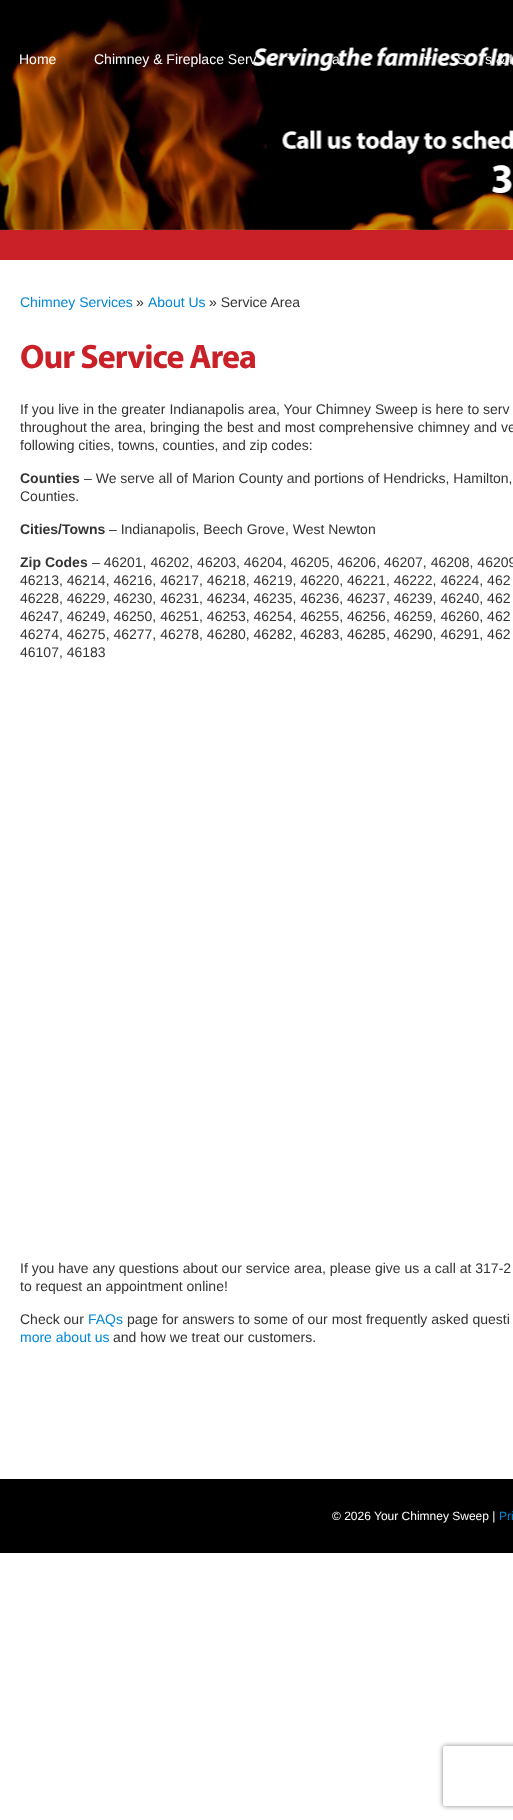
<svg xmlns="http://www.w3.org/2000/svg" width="513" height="1820">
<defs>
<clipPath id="clip1"><path d="M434 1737h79v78h-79zm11 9h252c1 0 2 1 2 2v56c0 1-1 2-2 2h-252c-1 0-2-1-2-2v-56c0-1 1-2 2-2z" clip-rule="evenodd"/></clipPath>
</defs>
<rect width="100%" height="100%" fill="#fff"/>
<image x="0" y="0" width="513" height="260" href="media/1.png"/>
<text x="19" y="64" style="font-family:Liberation Sans;font-size:14px;fill:#fff">Home</text>
<text x="94" y="64" style="font-family:Liberation Sans;font-size:14px;fill:#fff">Chimney &amp; Fireplace Serv</text>
<path d="M287 57h8l-4 4z" fill="#fff"/>
<text x="332" y="64" style="font-family:Liberation Sans;font-size:14px;fill:#fff">a</text>
<path d="M424 57h8l-4 4z" fill="#fff"/>
<text x="457" y="64" style="font-family:Liberation Sans;font-size:14px;fill:#fff">S</text>
<text x="485" y="64" style="font-family:Liberation Sans;font-size:14px;fill:#fff">s &amp; I</text>
<text x="20" y="307" style="font-family:Liberation Sans;font-size:14px;fill:#0087d6">Chimney Services</text>
<text x="136" y="307" style="font-family:Liberation Sans;font-size:14px;fill:#333">»</text>
<text x="148" y="307" style="font-family:Liberation Sans;font-size:14px;fill:#0087d6">About Us</text>
<text x="209" y="307" style="font-family:Liberation Sans;font-size:14px;fill:#333">» Service Area</text>
<text x="20" y="368" style="font-family:Myriad;font-size:34px;font-weight:bold;letter-spacing:-1px;fill:#ca2128">Our Service Area</text>
<text x="20" y="414" style="font-family:Liberation Sans;font-size:14px;fill:#333">If you live in the greater Indianapolis area, Your Chimney Sweep is here to serv</text>
<text x="20" y="432" style="font-family:Liberation Sans;font-size:14px;fill:#333">throughout the area, bringing the best and most comprehensive chimney and ve</text>
<text x="20" y="450" style="font-family:Liberation Sans;font-size:14px;fill:#333">following cities, towns, counties, and zip codes:</text>
<text x="20" y="483" style="font-family:Liberation Sans;font-size:14px;font-weight:bold;fill:#333">Counties</text>
<text x="84" y="483" style="font-family:Liberation Sans;font-size:14px;fill:#333">– We serve all of Marion County and portions of Hendricks, Hamilton,</text>
<text x="20" y="501" style="font-family:Liberation Sans;font-size:14px;fill:#333">Counties.</text>
<text x="20" y="534" style="font-family:Liberation Sans;font-size:14px;font-weight:bold;fill:#333">Cities/Towns</text>
<text x="109" y="534" style="font-family:Liberation Sans;font-size:14px;fill:#333">– Indianapolis, Beech Grove, West Newton</text>
<text x="20" y="567" style="font-family:Liberation Sans;font-size:14px;font-weight:bold;fill:#333">Zip Codes</text>
<text x="92" y="567" style="font-family:Liberation Sans;font-size:14px;fill:#333">– 46201, 46202, 46203, 46204, 46205, 46206, 46207, 46208, 46209</text>
<text x="20" y="585" style="font-family:Liberation Sans;font-size:14px;fill:#333">46213, 46214, 46216, 46217, 46218, 46219, 46220, 46221, 46222, 46224, 462</text>
<text x="20" y="603" style="font-family:Liberation Sans;font-size:14px;fill:#333">46228, 46229, 46230, 46231, 46234, 46235, 46236, 46237, 46239, 46240, 462</text>
<text x="20" y="621" style="font-family:Liberation Sans;font-size:14px;fill:#333">46247, 46249, 46250, 46251, 46253, 46254, 46255, 46256, 46259, 46260, 462</text>
<text x="20" y="639" style="font-family:Liberation Sans;font-size:14px;fill:#333">46274, 46275, 46277, 46278, 46280, 46282, 46283, 46285, 46290, 46291, 462</text>
<text x="20" y="657" style="font-family:Liberation Sans;font-size:14px;fill:#333">46107, 46183</text>
<text x="20" y="1273" style="font-family:Liberation Sans;font-size:14px;fill:#333">If you have any questions about our service area, please give us a call at 317-2</text>
<text x="20" y="1291" style="font-family:Liberation Sans;font-size:14px;fill:#333">to request an appointment online!</text>
<text x="20" y="1324" style="font-family:Liberation Sans;font-size:14px;fill:#333">Check our</text>
<text x="88" y="1324" style="font-family:Liberation Sans;font-size:14px;fill:#0087d6">FAQs</text>
<text x="127" y="1324" style="font-family:Liberation Sans;font-size:14px;fill:#333">page for answers to some of our most frequently asked questi</text>
<text x="20" y="1342" style="font-family:Liberation Sans;font-size:14px;fill:#0087d6">more about us</text>
<text x="113" y="1342" style="font-family:Liberation Sans;font-size:14px;fill:#333">and how we treat our customers.</text>
<rect y="1479" width="513" height="74" fill="#000"/>
<text x="332" y="1520" style="font-family:Liberation Sans;font-size:12px;fill:#fff">© 2026 Your Chimney Sweep |</text>
<text x="499" y="1520" style="font-family:Liberation Sans;font-size:12px;fill:#0087d6">Pri</text>
<g clip-path="url(#clip1)">
<rect x="443" y="1746" width="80" height="60" rx="2" fill="#808080" filter="blur(2.5px)"/>
</g>
</svg>
